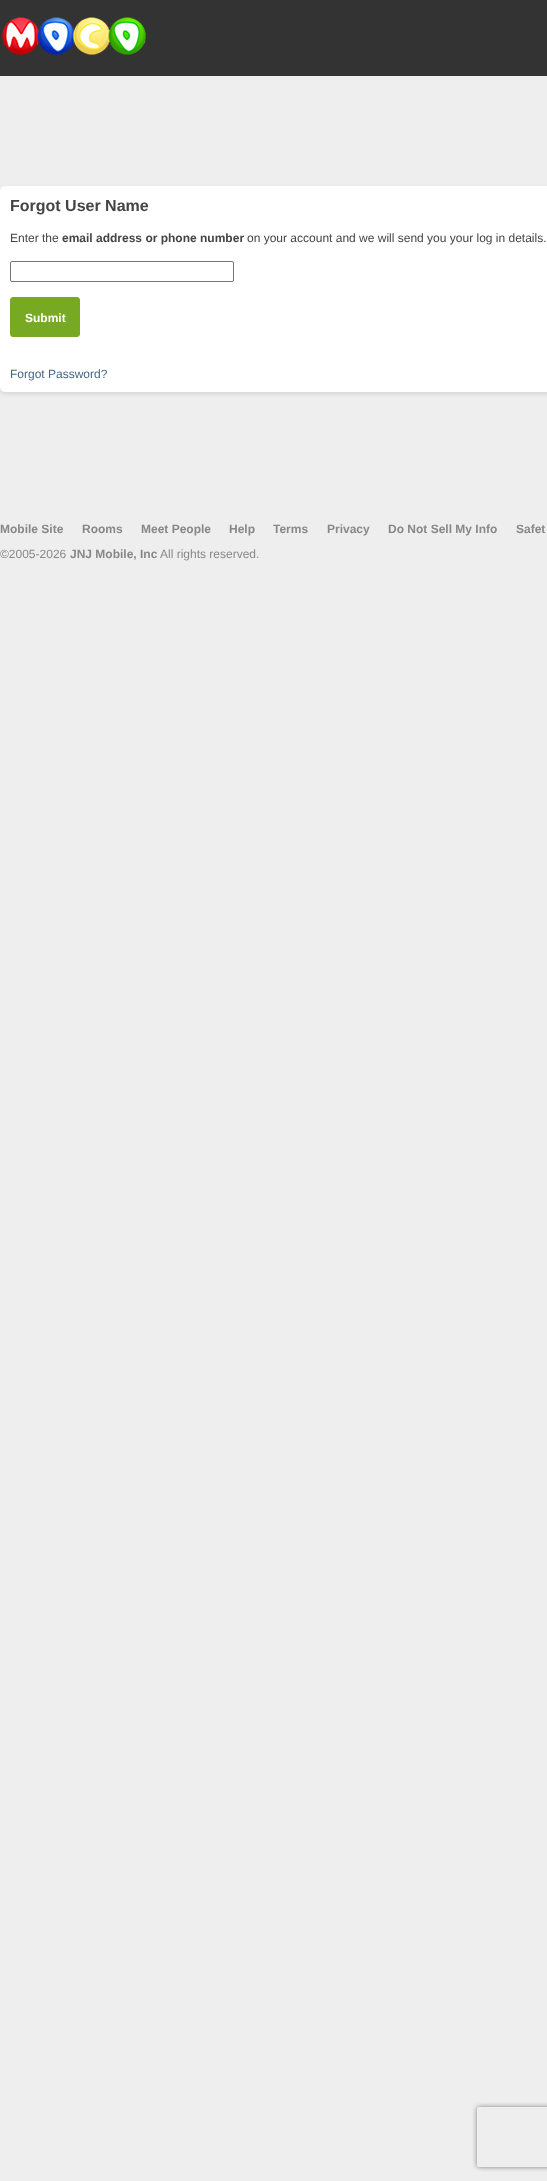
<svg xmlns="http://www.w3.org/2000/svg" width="547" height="2181">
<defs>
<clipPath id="clip1"><path d="M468 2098h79v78h-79zm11 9h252c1 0 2 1 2 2v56c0 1-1 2-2 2h-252c-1 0-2-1-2-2v-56c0-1 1-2 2-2z" clip-rule="evenodd"/></clipPath>
</defs>
<rect width="100%" height="100%" fill="#eee"/>
<rect width="547" height="76" fill="#333"/>
<image x="2" y="17" width="144" height="38" href="media/1.png"/>
<g clip-path="url(#clip1)">
<rect x="477" y="2107" width="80" height="60" rx="2" fill="#808080" filter="blur(2.5px)"/>
</g>
<rect y="188" width="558" height="206" rx="5" fill="#0000001a" filter="blur(2px)"/>
<rect y="186" width="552" height="206" rx="5" fill="#fff"/>
<text x="10" y="211" style="font-family:Liberation Sans;font-size:16px;font-weight:bold;fill:#444">Forgot User Name</text>
<text x="10" y="242" style="font-family:Liberation Sans;font-size:12px;fill:#444">Enter the</text>
<text x="62" y="242" style="font-family:Liberation Sans;font-size:12px;font-weight:bold;fill:#444">email address or phone number</text>
<text x="247" y="242" style="font-family:Liberation Sans;font-size:12px;fill:#444">on your account and we will send you your log in details.</text>
<rect x="10.5" y="261.5" width="223" height="20" rx="1.5" fill="none" stroke="#767676"/>
<rect x="10.5" y="297.5" width="69" height="39" rx="2.5" fill="#7a2" stroke="#7a2"/>
<text x="25" y="322" style="font-family:Liberation Sans;font-size:12px;font-weight:bold;fill:#fff">Submit</text>
<text x="10" y="378" style="font-family:Liberation Sans;font-size:12px;fill:#468">Forgot Password?</text>
<text x="0" y="533" style="font-family:Liberation Sans;font-size:12px;font-weight:bold;fill:#888">Mobile Site</text>
<text x="82" y="533" style="font-family:Liberation Sans;font-size:12px;font-weight:bold;fill:#888">Rooms</text>
<text x="141" y="533" style="font-family:Liberation Sans;font-size:12px;font-weight:bold;fill:#888">Meet People</text>
<text x="229" y="533" style="font-family:Liberation Sans;font-size:12px;font-weight:bold;fill:#888">Help</text>
<text x="273" y="533" style="font-family:Liberation Sans;font-size:12px;font-weight:bold;fill:#888">Terms</text>
<text x="327" y="533" style="font-family:Liberation Sans;font-size:12px;font-weight:bold;fill:#888">Privacy</text>
<text x="388" y="533" style="font-family:Liberation Sans;font-size:12px;font-weight:bold;fill:#888">Do Not Sell My Info</text>
<text x="516" y="533" style="font-family:Liberation Sans;font-size:12px;font-weight:bold;fill:#888">Safet</text>
<text x="0" y="558" style="font-family:Liberation Sans;font-size:12px;fill:#888">©2005-2026</text>
<text x="70" y="558" style="font-family:Liberation Sans;font-size:12px;font-weight:bold;fill:#888">JNJ Mobile, Inc</text>
<text x="160" y="558" style="font-family:Liberation Sans;font-size:12px;fill:#888">All rights reserved.</text>
</svg>
